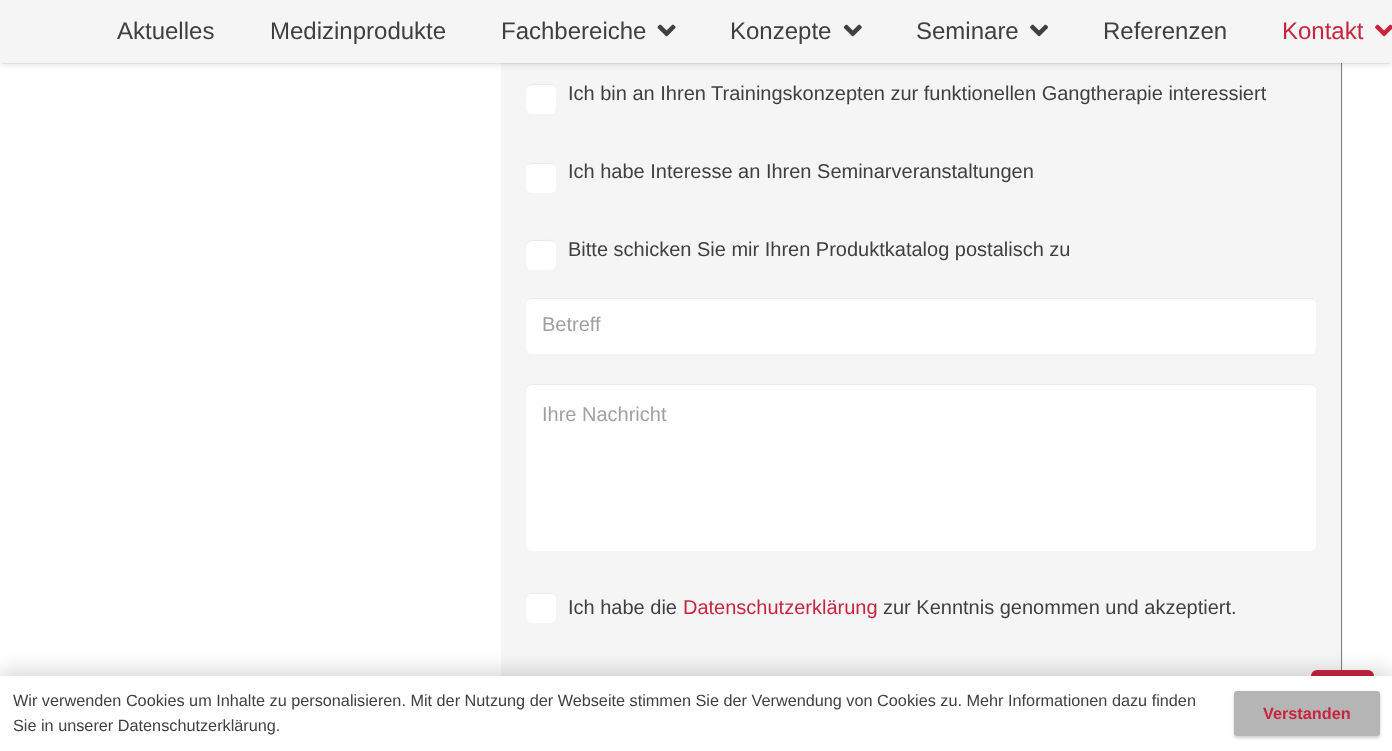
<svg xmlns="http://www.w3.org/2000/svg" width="1392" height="751">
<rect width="100%" height="100%" fill="#fff"/>
<rect x="501" y="63" width="842" height="613" fill="#f5f5f5"/>
<path d="M526-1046h792c13 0 24 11 24 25v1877c0 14-11 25-24 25h-792c-14 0-25-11-25-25v-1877c0-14 11-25 25-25zm0 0h792c13 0 23 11 23 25v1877c0 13-10 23-23 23h-792c-14 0-25-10-25-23v-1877c0-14 11-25 25-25z" fill="#808182" fill-rule="evenodd"/>
<rect x="1" y="4" width="1390" height="60" fill="#0000000d" filter="blur(0.5px)"/>
<rect x="1" y="5" width="1390" height="60" fill="#0000001a" filter="blur(3px)"/>
<rect width="1392" height="63" fill="#f5f5f5"/>
<text x="117" y="39" style="font-family:Liberation Sans;font-size:24px;fill:#404040">Aktuelles</text>
<text x="270" y="39" style="font-family:Liberation Sans;font-size:24px;fill:#404040">Medizinprodukte</text>
<text x="501" y="39" style="font-family:Liberation Sans;font-size:24px;fill:#404040">Fachbereiche</text>
<image x="657" y="24" width="19" height="13" href="media/1.png"/>
<text x="730" y="39" style="font-family:Liberation Sans;font-size:24px;fill:#404040">Konzepte</text>
<image x="843" y="24" width="19" height="13" href="media/2.png"/>
<text x="916" y="39" style="font-family:Liberation Sans;font-size:24px;fill:#404040">Seminare</text>
<image x="1030" y="24" width="18" height="13" href="media/3.png"/>
<text x="1103" y="39" style="font-family:Liberation Sans;font-size:24px;fill:#404040">Referenzen</text>
<text x="1282" y="39" style="font-family:Liberation Sans;font-size:24px;fill:#c9243f">Kontakt</text>
<image x="1375" y="24" width="17" height="13" href="media/4.png"/>
<rect x="526" y="84" width="30" height="30" rx="6" fill="#fff"/>
<path d="M532 85h18c4 0 6 3 6 6c0-9-8.5-7-15-7c-6.5 0-15-2-15 7c0-3 3-6 6-6z" fill="#eaeaea"/>
<text x="568" y="100" style="font-family:Liberation Sans;font-size:20px;fill:#404040">Ich bin an Ihren Trainingskonzepten zur funktionellen Gangtherapie interessiert</text>
<rect x="526" y="163" width="30" height="30" rx="6" fill="#fff"/>
<path d="M532 164h18c4 0 6 2 6 6c0-9-8.5-7-15-7c-6.5 0-15-2-15 7c0-4 3-6 6-6z" fill="#eaeaea"/>
<text x="568" y="178" style="font-family:Liberation Sans;font-size:20px;fill:#404040">Ich habe Interesse an Ihren Seminarveranstaltungen</text>
<rect x="526" y="240" width="30" height="30" rx="6" fill="#fff"/>
<path d="M532 241h18c4 0 6 3 6 6c0-9-8.5-7-15-7c-6.5 0-15-2-15 7c0-3 3-6 6-6z" fill="#eaeaea"/>
<text x="568" y="256" style="font-family:Liberation Sans;font-size:20px;fill:#404040">Bitte schicken Sie mir Ihren Produktkatalog postalisch zu</text>
<rect x="526" y="298" width="790" height="56" rx="6" fill="#fff"/>
<path d="M532 299h778c4 0 6 2 6 6c0-4-2-7-6-7h-778c-4 0-6 3-6 7c0-4 3-6 6-6z" fill="#ebebeb"/>
<text x="542" y="331" style="font-family:Liberation Sans;font-size:20px;fill:#a0a0a0">Betreff</text>
<rect x="526" y="384" width="790" height="167" rx="6" fill="#fff"/>
<path d="M532 385h778c4 0 6 3 6 6c0-4-2-7-6-7h-778c-4 0-6 3-6 7c0-3 3-6 6-6z" fill="#ebebeb"/>
<text x="542" y="421" style="font-family:Liberation Sans;font-size:20px;fill:#a0a0a0">Ihre Nachricht</text>
<rect x="526" y="593" width="30" height="30" rx="6" fill="#fff"/>
<path d="M532 594h18c4 0 6 2 6 6c0-9-8.5-7-15-7c-6.5 0-15-2-15 7c0-4 3-6 6-6z" fill="#eaeaea"/>
<text x="568" y="614" style="font-family:Liberation Sans;font-size:20px;fill:#404040">Ich habe die</text>
<text x="683" y="614" style="font-family:Liberation Sans;font-size:20px;fill:#c9243f">Datenschutzerklärung</text>
<text x="883" y="614" style="font-family:Liberation Sans;font-size:20px;fill:#404040">zur Kenntnis genommen und akzeptiert.</text>
<rect x="1311" y="670" width="63" height="63" rx="6" fill="#c9243f"/>
<rect y="670" width="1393" height="75" fill="#00000026" filter="blur(9.5px)"/>
<rect y="676" width="1392" height="75" fill="#fff"/>
<text x="13" y="706" style="font-family:Liberation Sans;font-size:16.25px;fill:#404040">Wir verwenden Cookies um Inhalte zu personalisieren. Mit der Nutzung der Webseite stimmen Sie der Verwendung von Cookies zu. Mehr Informationen dazu finden</text>
<text x="13" y="731" style="font-family:Liberation Sans;font-size:16.25px;fill:#404040">Sie in unserer Datenschutzerklärung.</text>
<rect x="1234" y="693" width="146" height="45" rx="3" fill="#00000033" filter="blur(1.5px)"/>
<rect x="1234" y="691" width="146" height="45" rx="3" fill="#b5b5b5"/>
<text x="1263" y="719" style="font-family:Liberation Sans;font-size:16.25px;font-weight:bold;fill:#c9243f">Verstanden</text>
</svg>
